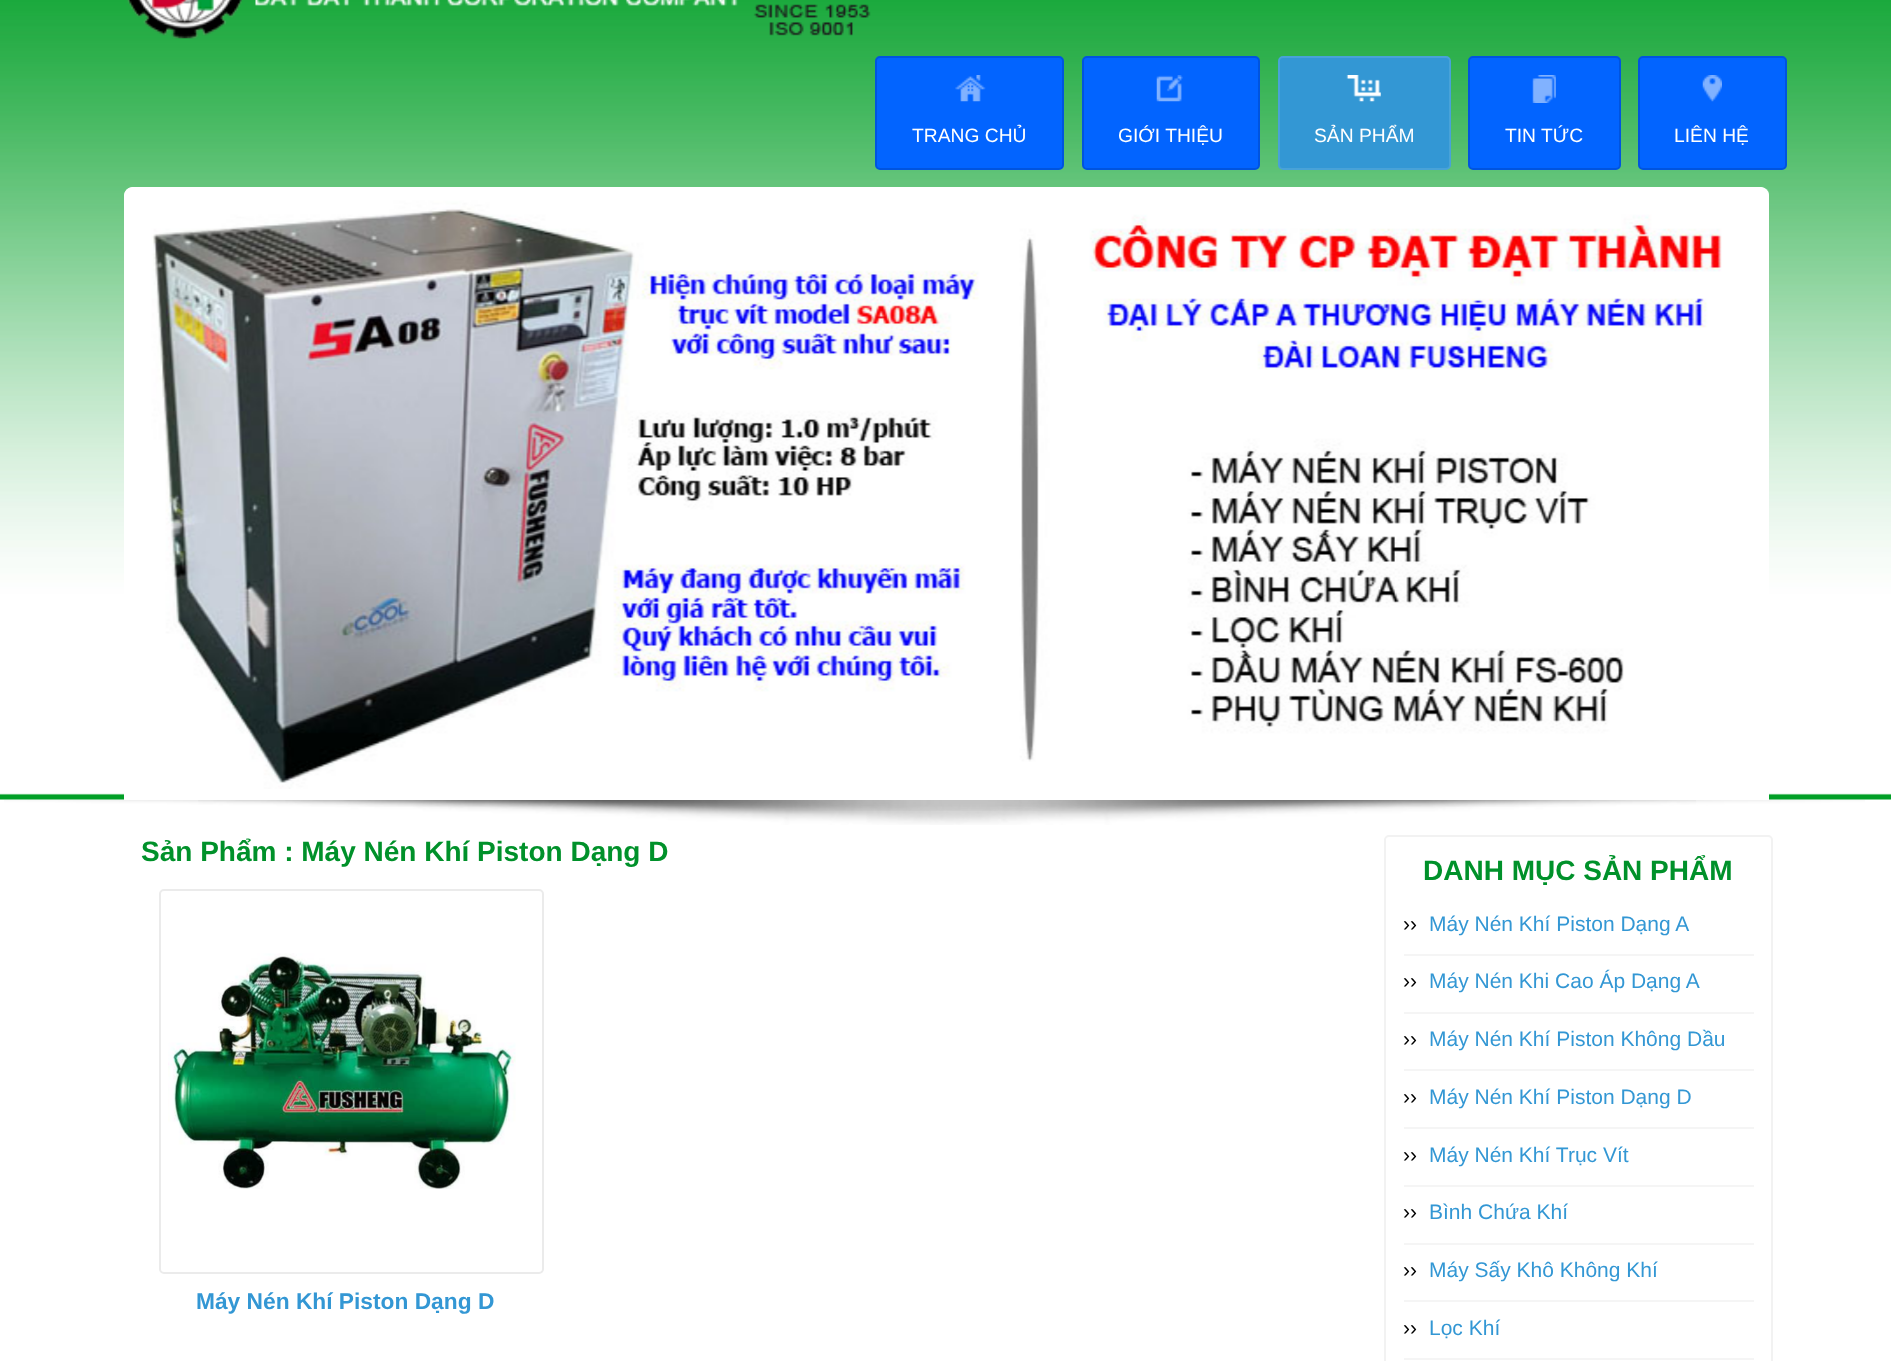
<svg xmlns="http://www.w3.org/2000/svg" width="1891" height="1361">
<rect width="100%" height="100%" fill="#fff"/>
<image x="4" y="799" width="1861" height="12" href="media/10.png"/>
<image x="0" y="0" width="1891" height="800" href="media/1.png"/>
<image x="127" y="0" width="744" height="39" href="media/2.png"/>
<rect x="876" y="57" width="187" height="112" rx="4" fill="#0264ff" stroke="#0054df" stroke-width="2"/>
<image x="955" y="75" width="31" height="27" href="media/3.png"/>
<text x="912" y="142" style="font-family:Liberation Sans;font-size:19.25px;fill:#fff">TRANG CHỦ</text>
<rect x="1083" y="57" width="176" height="112" rx="4" fill="#0264ff" stroke="#0054df" stroke-width="2"/>
<image x="1156" y="75" width="27" height="27" href="media/4.png"/>
<text x="1118" y="142" style="font-family:Liberation Sans;font-size:19.25px;fill:#fff">GIỚI THIỆU</text>
<rect x="1279" y="57" width="171" height="112" rx="4" fill="#3397d4" stroke="#48a2d8" stroke-width="2"/>
<image x="1346" y="75" width="35" height="27" href="media/5.png"/>
<text x="1314" y="142" style="font-family:Liberation Sans;font-size:19.25px;fill:#fff">SẢN PHẨM</text>
<rect x="1469" y="57" width="151" height="112" rx="4" fill="#0264ff" stroke="#0054df" stroke-width="2"/>
<image x="1532" y="75" width="24" height="28" href="media/6.png"/>
<text x="1505" y="142" style="font-family:Liberation Sans;font-size:19.25px;fill:#fff">TIN TỨC</text>
<rect x="1639" y="57" width="147" height="112" rx="4" fill="#0264ff" stroke="#0054df" stroke-width="2"/>
<image x="1702" y="75" width="20" height="27" href="media/7.png"/>
<text x="1674" y="142" style="font-family:Liberation Sans;font-size:19.25px;fill:#fff">LIÊN HỆ</text>
<path d="M133 187h1627c5 0 9 4 9 9v604h-1645v-604c0-5 4-9 9-9z" fill="#fff"/>
<image x="124" y="187" width="1645" height="602" href="media/8.png"/>
<image x="198" y="800" width="1498" height="25" href="media/9.png"/>
<text x="141" y="861" style="font-family:Liberation Sans;font-size:28px;font-weight:bold;fill:#00912a">Sản Phẩm : Máy Nén Khí Piston Dạng D</text>
<rect x="160" y="890" width="383" height="383" rx="4" fill="none" stroke="#ebebeb" stroke-width="2"/>
<image x="168" y="953" width="348" height="236" href="media/11.png"/>
<text x="196" y="1309" style="font-family:Liberation Sans;font-size:22.75px;font-weight:bold;fill:#3397d4">Máy Nén Khí Piston Dạng D</text>
<rect x="1385" y="836" width="387" height="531" rx="4" fill="none" stroke="#f2f2f2" stroke-width="2"/>
<text x="1423" y="880" style="font-family:Liberation Sans;font-size:28px;font-weight:bold;fill:#00912a">DANH MỤC SẢN PHẨM</text>
<rect x="1404" y="954" width="350" height="2" fill="#f5f5f5"/>
<text x="1403" y="931" style="font-family:Liberation Sans;font-size:21px;fill:#000">››</text>
<text x="1429" y="931" style="font-family:Liberation Sans;font-size:21px;fill:#3397d4">Máy Nén Khí Piston Dạng A</text>
<rect x="1404" y="1012" width="350" height="2" fill="#f5f5f5"/>
<text x="1403" y="988" style="font-family:Liberation Sans;font-size:21px;fill:#000">››</text>
<text x="1429" y="988" style="font-family:Liberation Sans;font-size:21px;fill:#3397d4">Máy Nén Khi Cao Áp Dạng A</text>
<rect x="1404" y="1069" width="350" height="2" fill="#f5f5f5"/>
<text x="1403" y="1046" style="font-family:Liberation Sans;font-size:21px;fill:#000">››</text>
<text x="1429" y="1046" style="font-family:Liberation Sans;font-size:21px;fill:#3397d4">Máy Nén Khí Piston Không Dầu</text>
<rect x="1404" y="1127" width="350" height="2" fill="#f5f5f5"/>
<text x="1403" y="1104" style="font-family:Liberation Sans;font-size:21px;fill:#000">››</text>
<text x="1429" y="1104" style="font-family:Liberation Sans;font-size:21px;fill:#3397d4">Máy Nén Khí Piston Dạng D</text>
<rect x="1404" y="1185" width="350" height="2" fill="#f5f5f5"/>
<text x="1403" y="1162" style="font-family:Liberation Sans;font-size:21px;fill:#000">››</text>
<text x="1429" y="1162" style="font-family:Liberation Sans;font-size:21px;fill:#3397d4">Máy Nén Khí Trục Vít</text>
<rect x="1404" y="1243" width="350" height="2" fill="#f5f5f5"/>
<text x="1403" y="1219" style="font-family:Liberation Sans;font-size:21px;fill:#000">››</text>
<text x="1429" y="1219" style="font-family:Liberation Sans;font-size:21px;fill:#3397d4">Bình Chứa Khí</text>
<rect x="1404" y="1300" width="350" height="2" fill="#f5f5f5"/>
<text x="1403" y="1277" style="font-family:Liberation Sans;font-size:21px;fill:#000">››</text>
<text x="1429" y="1277" style="font-family:Liberation Sans;font-size:21px;fill:#3397d4">Máy Sấy Khô Không Khí</text>
<rect x="1404" y="1358" width="350" height="2" fill="#f5f5f5"/>
<text x="1403" y="1335" style="font-family:Liberation Sans;font-size:21px;fill:#000">››</text>
<text x="1429" y="1335" style="font-family:Liberation Sans;font-size:21px;fill:#3397d4">Lọc Khí</text>
</svg>
